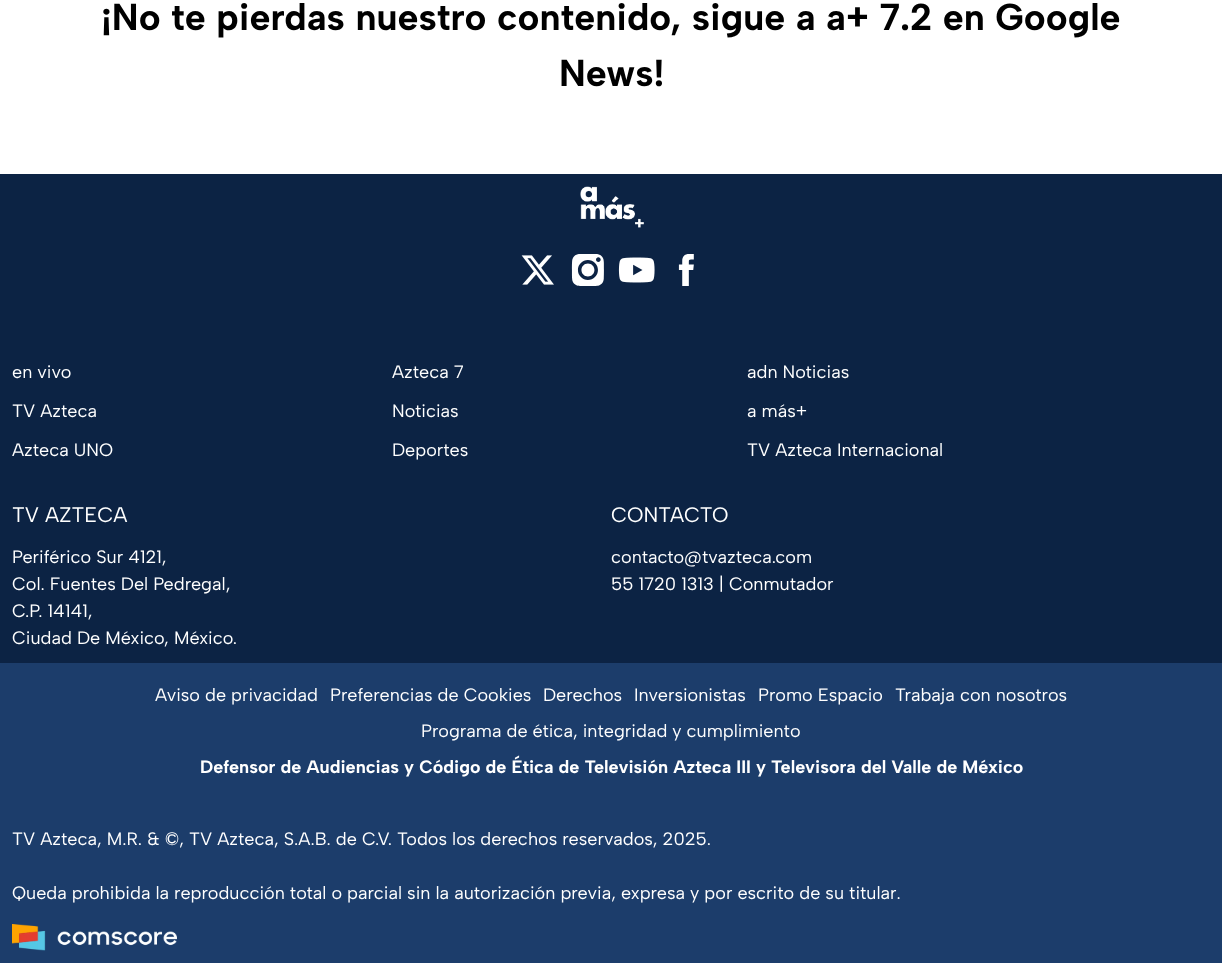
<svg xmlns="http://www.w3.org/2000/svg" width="1222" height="964">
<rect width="100%" height="100%" fill="#fff"/>
<text x="101" y="30" style="font-family:Albert Sans;font-size:37.5px;font-weight:bold;fill:#000">¡No te pierdas nuestro contenido, sigue a a+ 7.2 en Google</text>
<text x="559" y="86" style="font-family:Albert Sans;font-size:37.5px;font-weight:bold;fill:#000">News!</text>
<rect y="174" width="1222" height="489" fill="#0c2344"/>
<image x="580" y="186" width="64" height="42" href="media/1.png"/>
<image x="521" y="255" width="33" height="30" href="media/2.png"/>
<image x="571" y="254" width="33" height="32" href="media/3.png"/>
<image x="618" y="257" width="37" height="26" href="media/4.png"/>
<image x="678" y="254" width="16" height="32" href="media/5.png"/>
<text x="12" y="378" style="font-family:Albert Sans;font-size:18px;fill:#fff">en vivo</text>
<text x="392" y="378" style="font-family:Albert Sans;font-size:18px;fill:#fff">Azteca 7</text>
<text x="747" y="378" style="font-family:Albert Sans;font-size:18px;fill:#fff">adn Noticias</text>
<text x="12" y="417" style="font-family:Albert Sans;font-size:18px;fill:#fff">TV Azteca</text>
<text x="392" y="417" style="font-family:Albert Sans;font-size:18px;fill:#fff">Noticias</text>
<text x="747" y="417" style="font-family:Albert Sans;font-size:18px;fill:#fff">a más+</text>
<text x="12" y="456" style="font-family:Albert Sans;font-size:18px;fill:#fff">Azteca UNO</text>
<text x="392" y="456" style="font-family:Albert Sans;font-size:18px;fill:#fff">Deportes</text>
<text x="747" y="456" style="font-family:Albert Sans;font-size:18px;fill:#fff">TV Azteca Internacional</text>
<text x="12" y="522" style="font-family:Albert Sans;font-size:21px;fill:#fff">TV AZTECA</text>
<text x="12" y="563" style="font-family:Albert Sans;font-size:18px;fill:#fff">Periférico Sur 4121,</text>
<text x="12" y="590" style="font-family:Albert Sans;font-size:18px;fill:#fff">Col. Fuentes Del Pedregal,</text>
<text x="12" y="617" style="font-family:Albert Sans;font-size:18px;fill:#fff">C.P. 14141,</text>
<text x="12" y="644" style="font-family:Albert Sans;font-size:18px;fill:#fff">Ciudad De México, México.</text>
<text x="611" y="522" style="font-family:Albert Sans;font-size:21px;fill:#fff">CONTACTO</text>
<text x="611" y="563" style="font-family:Albert Sans;font-size:18px;fill:#fff">contacto@tvazteca.com</text>
<text x="611" y="590" style="font-family:Albert Sans;font-size:18px;fill:#fff">55 1720 1313 | Conmutador</text>
<rect y="663" width="1222" height="300" fill="#1c3d6b"/>
<text x="155" y="701" style="font-family:Albert Sans;font-size:18px;fill:#fff">Aviso de privacidad</text>
<text x="330" y="701" style="font-family:Albert Sans;font-size:18px;fill:#fff">Preferencias de Cookies</text>
<text x="543" y="701" style="font-family:Albert Sans;font-size:18px;fill:#fff">Derechos</text>
<text x="634" y="701" style="font-family:Albert Sans;font-size:18px;fill:#fff">Inversionistas</text>
<text x="758" y="701" style="font-family:Albert Sans;font-size:18px;fill:#fff">Promo Espacio</text>
<text x="895" y="701" style="font-family:Albert Sans;font-size:18px;fill:#fff">Trabaja con nosotros</text>
<text x="421" y="737" style="font-family:Albert Sans;font-size:18px;fill:#fff">Programa de ética, integridad y cumplimiento</text>
<text x="200" y="773" style="font-family:Albert Sans;font-size:18px;font-weight:bold;fill:#fff">Defensor de Audiencias y Código de Ética de Televisión Azteca III y Televisora del Valle de México</text>
<text x="12" y="845" style="font-family:Albert Sans;font-size:18px;fill:#fff">TV Azteca, M.R. &amp; ©, TV Azteca, S.A.B. de C.V. Todos los derechos reservados, 2025.</text>
<text x="12" y="899" style="font-family:Albert Sans;font-size:18px;fill:#fff">Queda prohibida la reproducción total o parcial sin la autorización previa, expresa y por escrito de su titular.</text>
<image x="12" y="924" width="165" height="27" href="media/6.png"/>
</svg>
